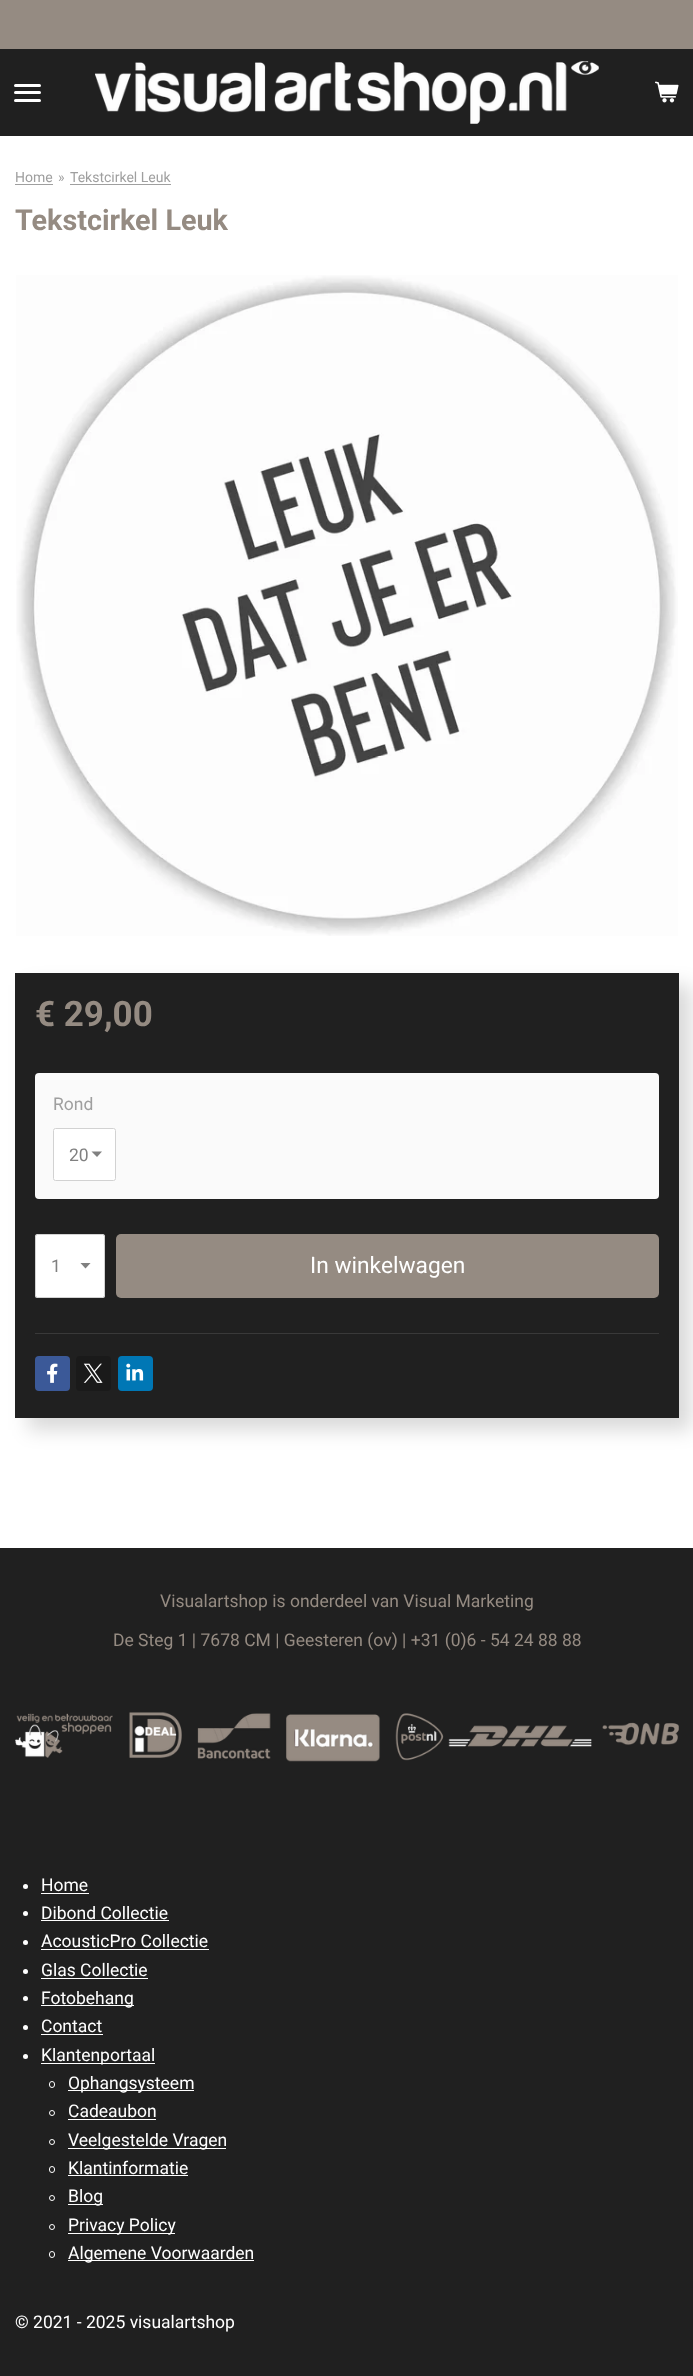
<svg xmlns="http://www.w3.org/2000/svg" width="693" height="2376">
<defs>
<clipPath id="clip1"><rect x="80" y="1263" width="11" height="6"/></clipPath>
</defs>
<rect width="100%" height="100%" fill="#fff"/>
<rect width="693" height="49" fill="#958b82"/>
<rect y="49" width="55" height="87" fill="#202020"/>
<rect x="14" y="91" width="27" height="3" rx="1.5" fill="#fff"/>
<rect x="14" y="84" width="27" height="3" rx="1.5" fill="#fff"/>
<rect x="14" y="99" width="27" height="3" rx="1.5" fill="#fff"/>
<rect x="55" y="49" width="638" height="87" fill="#202020"/>
<image x="655" y="81" width="24" height="22" href="media/1.png"/>
<image x="95" y="61" width="504" height="63" href="media/2.png"/>
<text x="15" y="182" style="font-family:Roboto;font-size:14px;fill:#9f9f9f">Home</text>
<rect x="15" y="184" width="38" height="1" fill="#9f9f9f"/>
<text x="58" y="182" style="font-family:Roboto;font-size:14px;fill:#9f9f9f">»</text>
<text x="70" y="182" style="font-family:Roboto;font-size:14px;fill:#9f9f9f">Tekstcirkel Leuk</text>
<rect x="70" y="184" width="101" height="1" fill="#9f9f9f"/>
<text x="15" y="230" style="font-family:Roboto;font-size:28.75px;font-weight:bold;fill:#958b82">Tekstcirkel Leuk</text>
<image x="16" y="275" width="662" height="661" href="media/3.png"/>
<rect x="28" y="985" width="663" height="445" fill="#00000026" filter="blur(9.5px)"/>
<rect x="15" y="973" width="664" height="445" fill="#202020"/>
<text x="35" y="1026" style="font-family:Roboto;font-size:35px;font-weight:bold;fill:#958b82">€ 29,00</text>
<rect x="35" y="1073" width="624" height="126" rx="4" fill="#fafafa"/>
<text x="53" y="1110" style="font-family:Roboto;font-size:17.5px;fill:#9f9f9f">Rond</text>
<rect x="53" y="1128" width="63" height="53" rx="2.5" fill="#fff"/>
<path d="M97 1157l-5.5-5.5h10.5z" fill="#808080"/>
<rect x="53.5" y="1128.5" width="62" height="52" rx="2" fill="none" stroke="#d2d2d2"/>
<text x="69" y="1161" style="font-family:Roboto;font-size:17.5px;fill:#808080">20</text>
<rect x="35" y="1234" width="70" height="64" rx="2.5" fill="#fff"/>
<g clip-path="url(#clip1)">
<path d="M85.5 1268.5l-5.5-6h11z" fill="#808080"/>
</g>
<rect x="35.5" y="1234.5" width="69" height="63" rx="2" fill="none" stroke="#a6a6a680"/>
<text x="51" y="1272" style="font-family:Roboto;font-size:17.5px;fill:#808080">1</text>
<rect x="116" y="1234" width="543" height="64" rx="5" fill="#958b82"/>
<text x="310" y="1273" style="font-family:Roboto;font-size:22.75px;fill:#fff">In winkelwagen</text>
<rect x="35" y="1333" width="624" height="1" fill="#393939"/>
<rect x="35" y="1356" width="35" height="35" rx="4" fill="#3b5998"/>
<image x="47" y="1363" width="11" height="20" href="media/4.png"/>
<rect x="76" y="1356" width="35" height="35" rx="4" fill="#1a1a1a"/>
<image x="83" y="1363" width="20" height="20" href="media/5.png"/>
<rect x="118" y="1356" width="35" height="35" rx="4" fill="#0077b5"/>
<image x="126" y="1363" width="18" height="18" href="media/6.png"/>
<rect y="1548" width="693" height="828" fill="#202020"/>
<text x="160" y="1607" style="font-family:Roboto;font-size:17.5px;fill:#958b82">Visualartshop is onderdeel van Visual Marketing</text>
<text x="113" y="1646" style="font-family:Roboto;font-size:17.5px;fill:#958b82">De Steg 1 | 7678 CM | Geesteren (ov) | +31 (0)6 - 54 24 88 88</text>
<image x="15" y="1712" width="664" height="50" href="media/7.png"/>
<circle cx="25.5" cy="1886.5" r="2.5" fill="#fff"/>
<text x="41" y="1891" style="font-family:Roboto;font-size:17.5px;fill:#fff">Home</text>
<rect x="41" y="1893" width="48" height="1" fill="#fff"/>
<circle cx="25.5" cy="1913.5" r="2.5" fill="#fff"/>
<text x="41" y="1919" style="font-family:Roboto;font-size:17.5px;fill:#fff">Dibond Collectie</text>
<rect x="41" y="1920" width="128" height="1" fill="#fff"/>
<circle cx="25.5" cy="1942.5" r="2.5" fill="#fff"/>
<text x="41" y="1947" style="font-family:Roboto;font-size:17.5px;fill:#fff">AcousticPro Collectie</text>
<rect x="41" y="1949" width="168" height="1" fill="#fff"/>
<circle cx="25.5" cy="1971.5" r="2.5" fill="#fff"/>
<text x="41" y="1976" style="font-family:Roboto;font-size:17.5px;fill:#fff">Glas Collectie</text>
<rect x="41" y="1978" width="107" height="1" fill="#fff"/>
<circle cx="25.5" cy="1998.5" r="2.5" fill="#fff"/>
<rect x="41" y="2005" width="93" height="1" fill="#fff"/>
<text x="41" y="2004" style="font-family:Roboto;font-size:17.5px;fill:#fff">Fotobehang</text>
<circle cx="25.5" cy="2027.5" r="2.5" fill="#fff"/>
<text x="41" y="2032" style="font-family:Roboto;font-size:17.5px;fill:#fff">Contact</text>
<rect x="41" y="2034" width="62" height="1" fill="#fff"/>
<circle cx="25.5" cy="2056.5" r="2.5" fill="#fff"/>
<rect x="41" y="2063" width="114" height="1" fill="#fff"/>
<text x="41" y="2061" style="font-family:Roboto;font-size:17.5px;fill:#fff">Klantenportaal</text>
<rect x="49.5" y="2081.5" width="5" height="6" rx="2.5" fill="none" stroke="#fff"/>
<rect x="68" y="2090" width="126" height="1" fill="#fff"/>
<text x="68" y="2089" style="font-family:Roboto;font-size:17.5px;fill:#fff">Ophangsysteem</text>
<circle cx="52" cy="2113" r="2.5" fill="none" stroke="#fff"/>
<text x="68" y="2117" style="font-family:Roboto;font-size:17.5px;fill:#fff">Cadeaubon</text>
<rect x="68" y="2119" width="88" height="1" fill="#fff"/>
<circle cx="52" cy="2142" r="2.5" fill="none" stroke="#fff"/>
<rect x="68" y="2148" width="158" height="1" fill="#fff"/>
<text x="68" y="2146" style="font-family:Roboto;font-size:17.5px;fill:#fff">Veelgestelde Vragen</text>
<rect x="49.5" y="2166.5" width="5" height="6" rx="2.5" fill="none" stroke="#fff"/>
<text x="68" y="2174" style="font-family:Roboto;font-size:17.5px;fill:#fff">Klantinformatie</text>
<rect x="68" y="2175" width="120" height="1" fill="#fff"/>
<circle cx="52" cy="2198" r="2.5" fill="none" stroke="#fff"/>
<rect x="68" y="2204" width="35" height="1" fill="#fff"/>
<text x="68" y="2202" style="font-family:Roboto;font-size:17.5px;fill:#fff">Blog</text>
<circle cx="52" cy="2227" r="2.5" fill="none" stroke="#fff"/>
<rect x="68" y="2233" width="107" height="1" fill="#fff"/>
<text x="68" y="2231" style="font-family:Roboto;font-size:17.5px;fill:#fff">Privacy Policy</text>
<rect x="49.5" y="2251.5" width="5" height="6" rx="2.5" fill="none" stroke="#fff"/>
<rect x="68" y="2260" width="186" height="1" fill="#fff"/>
<text x="68" y="2259" style="font-family:Roboto;font-size:17.5px;fill:#fff">Algemene Voorwaarden</text>
<text x="15" y="2328" style="font-family:Roboto;font-size:17.5px;fill:#fff">© 2021 - 2025 visualartshop</text>
</svg>
